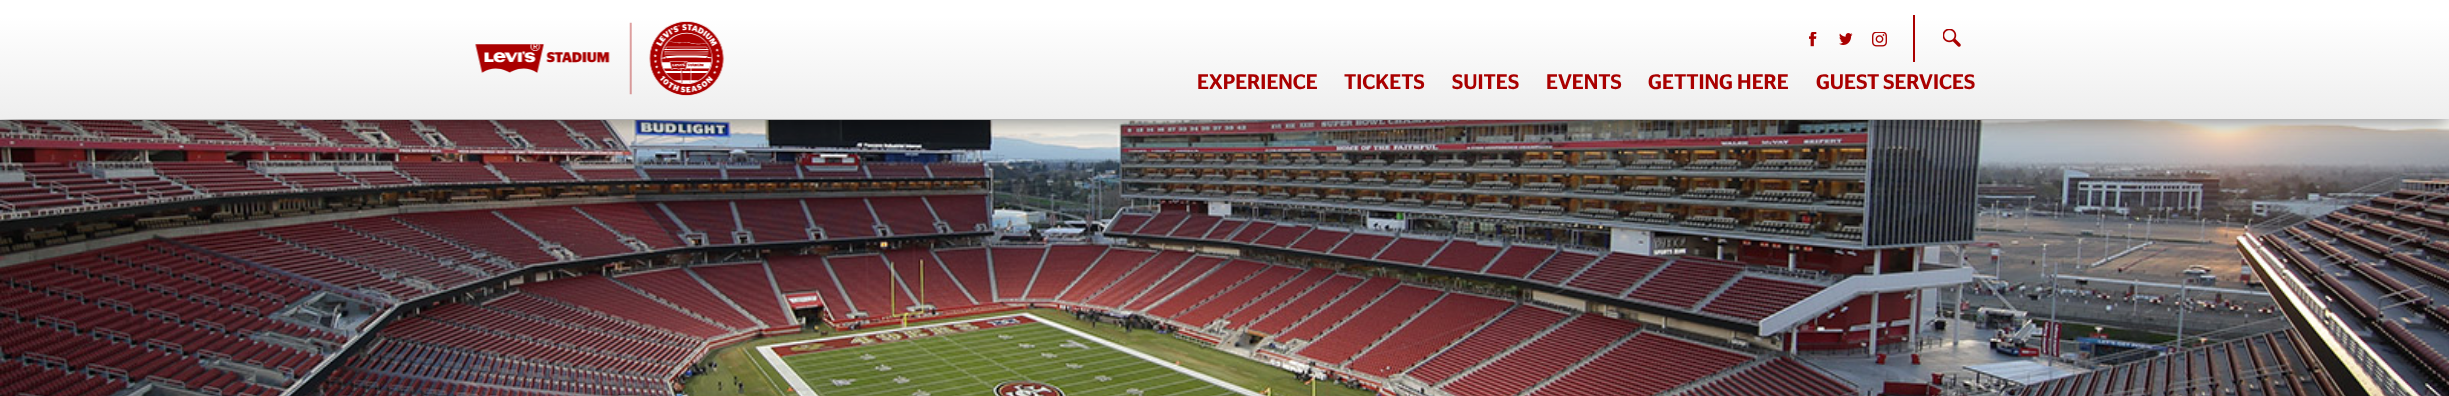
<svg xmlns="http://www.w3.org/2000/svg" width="2449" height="396">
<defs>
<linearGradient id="g1" gradientUnits="userSpaceOnUse" x1="1225" y1="0" x2="1225" y2="119"><stop offset="0.14" stop-color="#fff"/><stop offset="0.99" stop-color="#eee"/></linearGradient>
</defs>
<rect width="100%" height="100%" fill="#fff"/>
<image x="0" y="120" width="2449" height="276" href="media/6.png"/>
<rect y="3" width="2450" height="119" fill="#00000080" filter="blur(10.5px)"/>
<rect width="2449" height="119" fill="url(#g1)"/>
<image x="475" y="21" width="250" height="75" href="media/1.png"/>
<rect x="1913" y="15" width="2" height="47" fill="#a00"/>
<image x="1809" y="32" width="8" height="15" href="media/2.png"/>
<image x="1839" y="33" width="14" height="12" href="media/3.png"/>
<image x="1872" y="32" width="15" height="15" href="media/4.png"/>
<image x="1943" y="29" width="18" height="18" href="media/5.png"/>
<text x="1197" y="89" style="font-family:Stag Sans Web;font-size:21px;font-weight:500;fill:#a00">EXPERIENCE</text>
<text x="1344" y="89" style="font-family:Stag Sans Web;font-size:21px;font-weight:500;fill:#a00">TICKETS</text>
<text x="1452" y="89" style="font-family:Stag Sans Web;font-size:21px;font-weight:500;fill:#a00">SUITES</text>
<text x="1546" y="89" style="font-family:Stag Sans Web;font-size:21px;font-weight:500;fill:#a00">EVENTS</text>
<text x="1648" y="89" style="font-family:Stag Sans Web;font-size:21px;font-weight:500;fill:#a00">GETTING HERE</text>
<text x="1816" y="89" style="font-family:Stag Sans Web;font-size:21px;font-weight:500;fill:#a00">GUEST SERVICES</text>
</svg>
